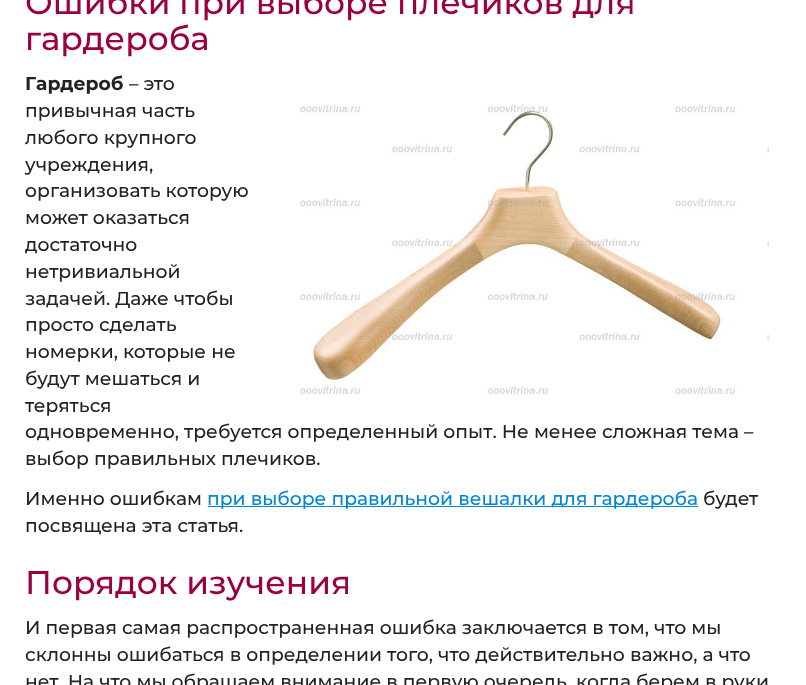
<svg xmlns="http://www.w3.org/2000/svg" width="806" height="685">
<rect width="100%" height="100%" fill="#fff"/>
<text x="25" y="14" style="font-family:Montserrat;font-size:32.8px;font-weight:500;fill:#9b0041">Ошибки при выборе плечиков для</text>
<text x="25" y="50" style="font-family:Montserrat;font-size:32.8px;font-weight:500;fill:#9b0041">гардероба</text>
<text x="25" y="90" style="font-family:Montserrat;font-size:18.75px;font-weight:bold;fill:#222">Гардероб</text>
<text x="129" y="90" style="font-family:Montserrat;font-size:18.75px;font-weight:500;fill:#222">– это</text>
<text x="25" y="117" style="font-family:Montserrat;font-size:18.75px;font-weight:500;fill:#222">привычная часть</text>
<image x="300" y="104" width="469" height="292" href="media/1.png"/>
<text x="25" y="144" style="font-family:Montserrat;font-size:18.75px;font-weight:500;fill:#222">любого крупного</text>
<text x="25" y="171" style="font-family:Montserrat;font-size:18.75px;font-weight:500;fill:#222">учреждения,</text>
<text x="25" y="197" style="font-family:Montserrat;font-size:18.75px;font-weight:500;fill:#222">организовать которую</text>
<text x="25" y="224" style="font-family:Montserrat;font-size:18.75px;font-weight:500;fill:#222">может оказаться</text>
<text x="25" y="251" style="font-family:Montserrat;font-size:18.75px;font-weight:500;fill:#222">достаточно</text>
<text x="25" y="278" style="font-family:Montserrat;font-size:18.75px;font-weight:500;fill:#222">нетривиальной</text>
<text x="25" y="305" style="font-family:Montserrat;font-size:18.75px;font-weight:500;fill:#222">задачей. Даже чтобы</text>
<text x="25" y="331" style="font-family:Montserrat;font-size:18.75px;font-weight:500;fill:#222">просто сделать</text>
<text x="25" y="358" style="font-family:Montserrat;font-size:18.75px;font-weight:500;fill:#222">номерки, которые не</text>
<text x="25" y="385" style="font-family:Montserrat;font-size:18.75px;font-weight:500;fill:#222">будут мешаться и</text>
<text x="25" y="412" style="font-family:Montserrat;font-size:18.75px;font-weight:500;fill:#222">теряться</text>
<text x="25" y="438" style="font-family:Montserrat;font-size:18.75px;font-weight:500;fill:#222">одновременно, требуется определенный опыт. Не менее сложная тема –</text>
<text x="25" y="465" style="font-family:Montserrat;font-size:18.75px;font-weight:500;fill:#222">выбор правильных плечиков.</text>
<text x="25" y="505" style="font-family:Montserrat;font-size:18.75px;font-weight:500;fill:#222">Именно ошибкам</text>
<rect x="208" y="506" width="490" height="1" fill="#0086d5"/>
<text x="207" y="505" style="font-family:Montserrat;font-size:18.75px;font-weight:500;fill:#0086d5">при выборе правильной вешалки для гардероба</text>
<text x="703" y="505" style="font-family:Montserrat;font-size:18.75px;font-weight:500;fill:#222">будет</text>
<text x="25" y="532" style="font-family:Montserrat;font-size:18.75px;font-weight:500;fill:#222">посвящена эта статья.</text>
<text x="25" y="594" style="font-family:Montserrat;font-size:32.8px;font-weight:500;fill:#9b0041">Порядок изучения</text>
<text x="25" y="634" style="font-family:Montserrat;font-size:18.75px;font-weight:500;fill:#222">И первая самая распространенная ошибка заключается в том, что мы</text>
<text x="25" y="661" style="font-family:Montserrat;font-size:18.75px;font-weight:500;fill:#222">склонны ошибаться в определении того, что действительно важно, а что</text>
<text x="25" y="688" style="font-family:Montserrat;font-size:18.75px;font-weight:500;fill:#222">нет. На что мы обращаем внимание в первую очередь, когда берем в руки</text>
</svg>
